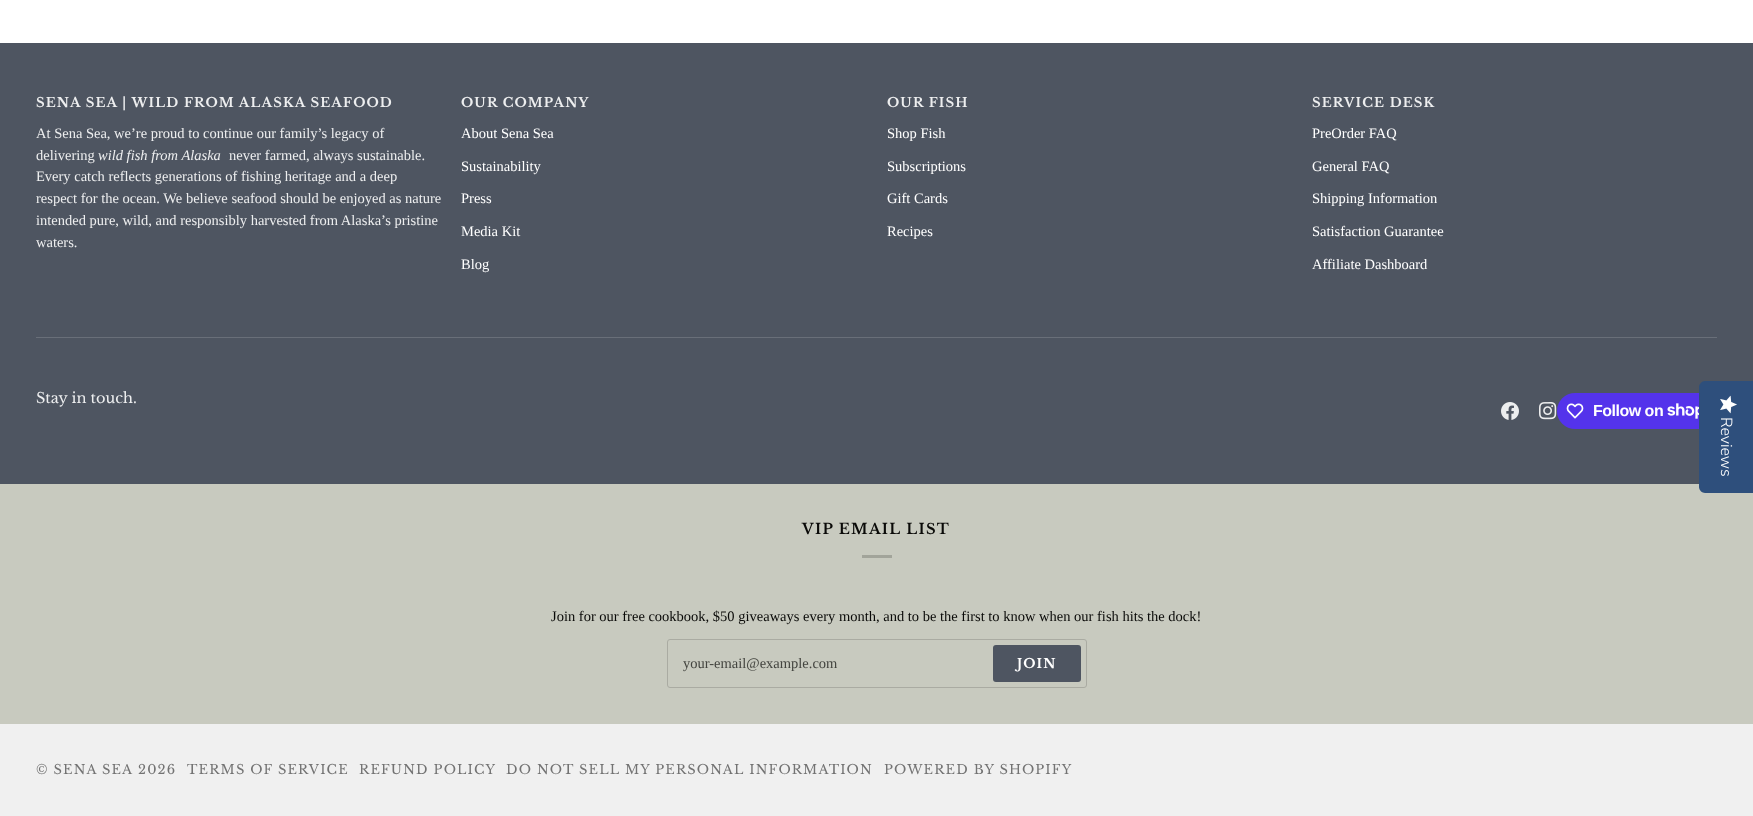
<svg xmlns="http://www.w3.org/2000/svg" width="1753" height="816">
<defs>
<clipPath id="clip1"><rect x="683" y="655" width="300" height="17"/></clipPath>
</defs>
<rect width="100%" height="100%" fill="#fff"/>
<rect y="43" width="1753" height="441" fill="#4e5561"/>
<text x="36" y="107" style="font-family:Libre Baskerville;font-size:13px;font-weight:bold;letter-spacing:1.15px;fill:#edeeef">SENA SEA | WILD FROM ALASKA SEAFOOD</text>
<text x="36" y="138" style="font-family:Liberation Serif;font-size:14.5px;fill:#edeeef">At Sena Sea, we’re proud to continue our family’s legacy of</text>
<text x="36" y="160" style="font-family:Liberation Serif;font-size:14.5px;fill:#edeeef">delivering</text>
<text x="98" y="160" style="font-family:Liberation Serif;font-size:14.5px;font-style:italic;fill:#edeeef">wild fish from Alaska</text>
<text x="229" y="160" style="font-family:Liberation Serif;font-size:14.5px;fill:#edeeef">never farmed, always sustainable.</text>
<text x="36" y="181" style="font-family:Liberation Serif;font-size:14.5px;fill:#edeeef">Every catch reflects generations of fishing heritage and a deep</text>
<text x="36" y="203" style="font-family:Liberation Serif;font-size:14.5px;fill:#edeeef">respect for the ocean. We believe seafood should be enjoyed as nature</text>
<text x="36" y="225" style="font-family:Liberation Serif;font-size:14.5px;fill:#edeeef">intended pure, wild, and responsibly harvested from Alaska’s pristine</text>
<text x="36" y="247" style="font-family:Liberation Serif;font-size:14.5px;fill:#edeeef">waters.</text>
<text x="461" y="107" style="font-family:Libre Baskerville;font-size:13px;font-weight:bold;letter-spacing:1.15px;fill:#edeeef">OUR COMPANY</text>
<text x="461" y="138" style="font-family:Liberation Serif;font-size:14.5px;fill:#fff">About Sena Sea</text>
<text x="461" y="171" style="font-family:Liberation Serif;font-size:14.5px;fill:#fff">Sustainability</text>
<text x="461" y="203" style="font-family:Liberation Serif;font-size:14.5px;fill:#fff">Press</text>
<text x="461" y="236" style="font-family:Liberation Serif;font-size:14.5px;fill:#fff">Media Kit</text>
<text x="461" y="269" style="font-family:Liberation Serif;font-size:14.5px;fill:#fff">Blog</text>
<text x="887" y="107" style="font-family:Libre Baskerville;font-size:13px;font-weight:bold;letter-spacing:1.15px;fill:#edeeef">OUR FISH</text>
<text x="887" y="138" style="font-family:Liberation Serif;font-size:14.5px;fill:#fff">Shop Fish</text>
<text x="887" y="171" style="font-family:Liberation Serif;font-size:14.5px;fill:#fff">Subscriptions</text>
<text x="887" y="203" style="font-family:Liberation Serif;font-size:14.5px;fill:#fff">Gift Cards</text>
<text x="887" y="236" style="font-family:Liberation Serif;font-size:14.5px;fill:#fff">Recipes</text>
<text x="1312" y="107" style="font-family:Libre Baskerville;font-size:13px;font-weight:bold;letter-spacing:1.15px;fill:#edeeef">SERVICE DESK</text>
<text x="1312" y="138" style="font-family:Liberation Serif;font-size:14.5px;fill:#fff">PreOrder FAQ</text>
<text x="1312" y="171" style="font-family:Liberation Serif;font-size:14.5px;fill:#fff">General FAQ</text>
<text x="1312" y="203" style="font-family:Liberation Serif;font-size:14.5px;fill:#fff">Shipping Information</text>
<text x="1312" y="236" style="font-family:Liberation Serif;font-size:14.5px;fill:#fff">Satisfaction Guarantee</text>
<text x="1312" y="269" style="font-family:Liberation Serif;font-size:14.5px;fill:#fff">Affiliate Dashboard</text>
<rect x="36" y="337" width="1681" height="1" fill="#696f79"/>
<text x="36" y="403" style="font-family:Libre Baskerville;font-size:14.5px;fill:#edeeef">Stay in touch.</text>
<image x="1501" y="402" width="18" height="18" href="media/1.png"/>
<image x="1539" y="402" width="18" height="18" href="media/2.png"/>
<rect x="1557" y="393" width="160" height="36" rx="18" fill="#5433eb"/>
<image x="1566" y="403" width="18" height="16" href="media/3.png"/>
<text x="1593" y="416" style="font-family:Liberation Sans;font-size:16px;font-weight:bold;letter-spacing:-0.5px;fill:#fff">Follow on</text>
<image x="1667" y="403" width="32" height="16" href="media/4.png"/>
<rect y="484" width="1753" height="240" fill="#c8cabf"/>
<path d="M1753 381v112h-48c-3 0-6-3-6-6v-100c0-3 3-6 6-6z" fill="#2e4f7c"/>
<image x="1720" y="395" width="17" height="19" href="media/5.png"/>
<text x="1721" y="417" transform="rotate(90 1721 417)" style="font-family:Nunito Sans;font-size:16px;font-weight:300;fill:#fff">Reviews</text>
<text x="802" y="534" style="font-family:Libre Baskerville;font-size:14.5px;font-weight:bold;letter-spacing:1.25px;fill:#0a0a08">VIP EMAIL LIST</text>
<rect x="862" y="555" width="30" height="3" fill="#a2a49a"/>
<text x="551" y="621" style="font-family:Liberation Serif;font-size:14.5px;fill:#0a0a08">Join for our free cookbook, $50 giveaways every month, and to be the first to know when our fish hits the dock!</text>
<rect x="667.5" y="639.5" width="419" height="48" rx="2.5" fill="none" stroke="#aaaba2"/>
<g clip-path="url(#clip1)">
<text x="683" y="668" style="font-family:Liberation Serif;font-size:14.5px;fill:#43443f">your-email@example.com</text>
</g>
<rect x="993" y="645" width="88" height="37" rx="3" fill="#4e5561"/>
<text x="1017" y="668" style="font-family:Libre Baskerville;font-size:13px;font-weight:bold;letter-spacing:1.15px;fill:#fff">JOIN</text>
<rect y="724" width="1753" height="92" fill="#f0f0f0"/>
<text x="36" y="774" style="font-family:Libre Baskerville;font-size:13px;letter-spacing:1.15px;fill:#737373">© SENA SEA</text>
<text x="138" y="774" style="font-family:Libre Baskerville;font-size:13px;letter-spacing:1.15px;fill:#737373">2026</text>
<text x="187" y="774" style="font-family:Libre Baskerville;font-size:13px;letter-spacing:1.15px;fill:#737373">TERMS OF SERVICE</text>
<text x="359" y="774" style="font-family:Libre Baskerville;font-size:13px;letter-spacing:1.15px;fill:#737373">REFUND POLICY</text>
<text x="506" y="774" style="font-family:Libre Baskerville;font-size:13px;letter-spacing:1.15px;fill:#737373">DO NOT SELL MY PERSONAL INFORMATION</text>
<text x="884" y="774" style="font-family:Libre Baskerville;font-size:13px;letter-spacing:1.15px;fill:#737373">POWERED BY SHOPIFY</text>
</svg>
